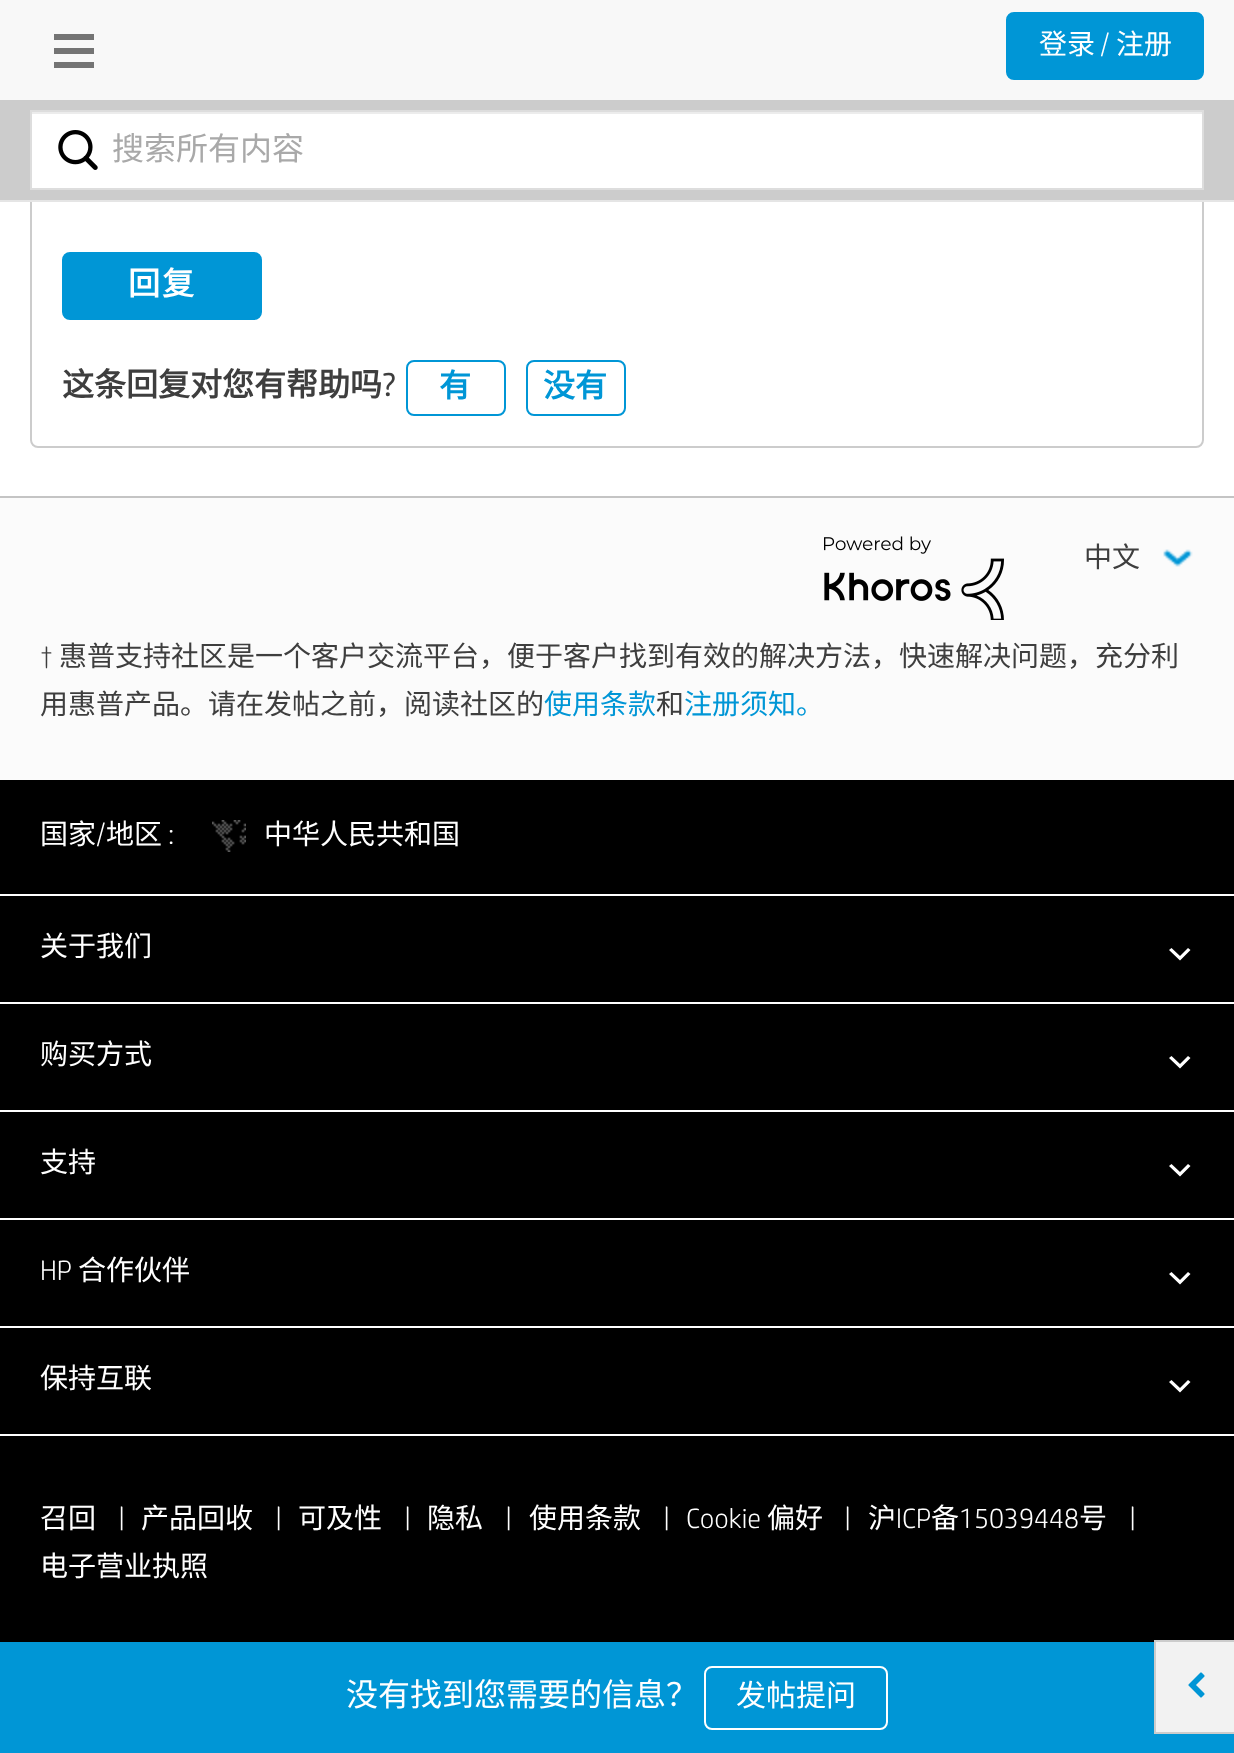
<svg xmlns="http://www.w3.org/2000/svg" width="1234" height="1753">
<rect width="100%" height="100%" fill="#fff"/>
<rect x="31" y="-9" width="1172" height="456" rx="7" fill="none" stroke="#ccc" stroke-width="2"/>
<rect width="1234" height="100" fill="#f8f8f8"/>
<rect y="200" width="1234" height="2" fill="#e5e5e5"/>
<path d="M54 34h40v6h-40zm0 14h40v6h-40zm0 14h40v6h-40z" fill="#747474" fill-rule="evenodd"/>
<rect x="1007" y="13" width="196" height="66" rx="7" fill="#0096d6" stroke="#0096d6" stroke-width="2"/>
<text x="1039" y="54" style="font-family:Noto Sans CJK SC;font-size:28px;fill:#fff">登录</text>
<text x="1100" y="54" style="font-family:'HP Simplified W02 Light';font-size:28px;font-weight:300;fill:#fff">/</text>
<text x="1116" y="54" style="font-family:Noto Sans CJK SC;font-size:28px;fill:#fff">注册</text>
<rect y="100" width="1234" height="100" fill="#ccc"/>
<rect x="32" y="114" width="1170" height="74" fill="#fff"/>
<rect x="32" y="112" width="1170" height="2" fill="#ececec"/>
<rect x="31" y="111" width="1172" height="78" fill="none" stroke="#ddd" stroke-width="2"/>
<image x="58" y="130" width="40" height="40" href="media/1.png"/>
<text x="112" y="160" style="font-family:Noto Sans CJK SC;font-size:32px;fill:#a9a9a9">搜索所有内容</text>
<rect y="1642" width="1234" height="111" fill="#0096d6"/>
<rect x="1156" y="1642" width="78" height="90" fill="#f2f2f2"/>
<rect y="896" width="1234" height="746" fill="#000"/>
<rect x="1154" y="1640" width="80" height="2" fill="#ccc"/>
<rect x="1154" y="1732" width="80" height="2" fill="#ccc"/>
<rect x="1154" y="1640" width="2" height="94" fill="#ccc"/>
<image x="1188" y="1672" width="17" height="26" href="media/2.png"/>
<rect x="63" y="253" width="198" height="66" rx="7" fill="#0096d6" stroke="#0096d6" stroke-width="2"/>
<text x="128" y="295" style="font-family:Noto Sans CJK SC;font-size:32px;font-weight:bold;letter-spacing:2px;fill:#fff">回复</text>
<text x="62" y="396" style="font-family:Noto Sans CJK SC;font-size:32px;font-weight:bold;fill:#3e3e3e">这条回复对您有帮助吗</text>
<text x="382" y="396" style="font-family:'HP Simplified W02 Light';font-size:32px;font-weight:bold;fill:#3e3e3e">?</text>
<rect x="407" y="361" width="98" height="54" rx="7" fill="none" stroke="#0096d6" stroke-width="2"/>
<text x="439" y="397" style="font-family:Noto Sans CJK SC;font-size:32px;font-weight:bold;fill:#0096d6">有</text>
<rect x="527" y="361" width="98" height="54" rx="7" fill="none" stroke="#0096d6" stroke-width="2"/>
<text x="543" y="397" style="font-family:Noto Sans CJK SC;font-size:32px;font-weight:bold;fill:#0096d6">没有</text>
<rect y="498" width="1234" height="282" fill="#fbfbfb"/>
<rect y="496" width="1234" height="2" fill="#c4c4c4"/>
<image x="824" y="536" width="180" height="84" href="media/3.png"/>
<image x="1163" y="549" width="30" height="18" href="media/4.png"/>
<text x="1084" y="567" style="font-family:Noto Sans CJK SC;font-size:28px;fill:#3e3e3e">中文</text>
<text x="346" y="1706" style="font-family:Noto Sans CJK SC;font-size:32px;fill:#fff">没有找到您需要的信息？</text>
<rect x="705" y="1667" width="182" height="62" rx="7" fill="none" stroke="#fff" stroke-width="2"/>
<text x="736" y="1706" style="font-family:Noto Sans CJK SC;font-size:30px;fill:#fff">发帖提问</text>
<text x="40" y="666" style="font-family:'HP Simplified W02 Light';font-size:28px;font-weight:300;fill:#3e3e3e">†</text>
<text x="59" y="666" style="font-family:Noto Sans CJK SC;font-size:28px;fill:#3e3e3e">惠普支持社区是一个客户交流平台，便于客户找到有效的解决方法，快速解决问题，充分利</text>
<text x="40" y="714" style="font-family:Noto Sans CJK SC;font-size:28px;fill:#3e3e3e">用惠普产品。请在发帖之前，阅读社区的</text>
<text x="544" y="714" style="font-family:Noto Sans CJK SC;font-size:28px;fill:#0096d6">使用条款</text>
<text x="656" y="714" style="font-family:Noto Sans CJK SC;font-size:28px;fill:#3e3e3e">和</text>
<text x="684" y="714" style="font-family:Noto Sans CJK SC;font-size:28px;fill:#0096d6">注册须知。</text>
<rect y="780" width="1234" height="114" fill="#000"/>
<text x="40" y="844" style="font-family:Noto Sans CJK SC;font-size:28px;fill:#fff">国家</text>
<text x="96" y="844" style="font-family:'HP Simplified W02 Light';font-size:28px;font-weight:300;fill:#fff">/</text>
<text x="106" y="844" style="font-family:Noto Sans CJK SC;font-size:28px;fill:#fff">地区</text>
<text x="168" y="844" style="font-family:'HP Simplified W02 Light';font-size:28px;font-weight:300;fill:#fff">:</text>
<image x="212" y="820" width="34" height="32" href="media/5.png"/>
<text x="264" y="844" style="font-family:Noto Sans CJK SC;font-size:28px;fill:#fff">中华人民共和国</text>
<text x="40" y="956" style="font-family:Noto Sans CJK SC;font-size:28px;fill:#fff">关于我们</text>
<path d="M1171.5 948l-2.5 2l11 10.5l10.5-10.5l-2.5-2l-8 8z" fill="#fff"/>
<rect y="1002" width="1234" height="2" fill="#fff"/>
<text x="40" y="1064" style="font-family:Noto Sans CJK SC;font-size:28px;fill:#fff">购买方式</text>
<path d="M1171.5 1056l-2.5 2l11 10.5l10.5-10.5l-2.5-2l-8 8z" fill="#fff"/>
<rect y="1110" width="1234" height="2" fill="#fff"/>
<text x="40" y="1172" style="font-family:Noto Sans CJK SC;font-size:28px;fill:#fff">支持</text>
<path d="M1171.5 1164l-2.5 2l11 10.5l10.5-10.5l-2.5-2l-8 8z" fill="#fff"/>
<rect y="1218" width="1234" height="2" fill="#fff"/>
<text x="40" y="1280" style="font-family:'HP Simplified W02 Light';font-size:28px;font-weight:300;fill:#fff">HP</text>
<text x="78" y="1280" style="font-family:Noto Sans CJK SC;font-size:28px;fill:#fff">合作伙伴</text>
<path d="M1171.5 1272l-2.5 2l11 10.5l10.5-10.5l-2.5-2l-8 8z" fill="#fff"/>
<rect y="1326" width="1234" height="2" fill="#fff"/>
<text x="40" y="1388" style="font-family:Noto Sans CJK SC;font-size:28px;fill:#fff">保持互联</text>
<path d="M1171.5 1380l-2.5 2l11 10.5l10.5-10.5l-2.5-2l-8 8z" fill="#fff"/>
<rect y="1434" width="1234" height="2" fill="#fff"/>
<text x="40" y="1528" style="font-family:Noto Sans CJK SC;font-size:28px;fill:#fff">召回</text>
<text x="118" y="1528" style="font-family:'HP Simplified W02 Light';font-size:28px;font-weight:300;fill:#fff">|</text>
<text x="141" y="1528" style="font-family:Noto Sans CJK SC;font-size:28px;fill:#fff">产品回收</text>
<text x="275" y="1528" style="font-family:'HP Simplified W02 Light';font-size:28px;font-weight:300;fill:#fff">|</text>
<text x="298" y="1528" style="font-family:Noto Sans CJK SC;font-size:28px;fill:#fff">可及性</text>
<text x="404" y="1528" style="font-family:'HP Simplified W02 Light';font-size:28px;font-weight:300;fill:#fff">|</text>
<text x="427" y="1528" style="font-family:Noto Sans CJK SC;font-size:28px;fill:#fff">隐私</text>
<text x="505" y="1528" style="font-family:'HP Simplified W02 Light';font-size:28px;font-weight:300;fill:#fff">|</text>
<text x="529" y="1528" style="font-family:Noto Sans CJK SC;font-size:28px;fill:#fff">使用条款</text>
<text x="663" y="1528" style="font-family:'HP Simplified W02 Light';font-size:28px;font-weight:300;fill:#fff">|</text>
<text x="686" y="1528" style="font-family:'HP Simplified W02 Light';font-size:28px;font-weight:300;fill:#fff">Cookie</text>
<text x="767" y="1528" style="font-family:Noto Sans CJK SC;font-size:28px;fill:#fff">偏好</text>
<text x="844" y="1528" style="font-family:'HP Simplified W02 Light';font-size:28px;font-weight:300;fill:#fff">|</text>
<text x="868" y="1528" style="font-family:Noto Sans CJK SC;font-size:28px;fill:#fff">沪</text>
<text x="896" y="1528" style="font-family:'HP Simplified W02 Light';font-size:28px;font-weight:300;fill:#fff">ICP</text>
<text x="931" y="1528" style="font-family:Noto Sans CJK SC;font-size:28px;fill:#fff">备</text>
<text x="959" y="1528" style="font-family:'HP Simplified W02 Light';font-size:28px;font-weight:300;fill:#fff">15039448</text>
<text x="1079" y="1528" style="font-family:Noto Sans CJK SC;font-size:28px;fill:#fff">号</text>
<text x="1129" y="1528" style="font-family:'HP Simplified W02 Light';font-size:28px;font-weight:300;fill:#fff">|</text>
<text x="40" y="1576" style="font-family:Noto Sans CJK SC;font-size:28px;fill:#fff">电子营业执照</text>
</svg>
